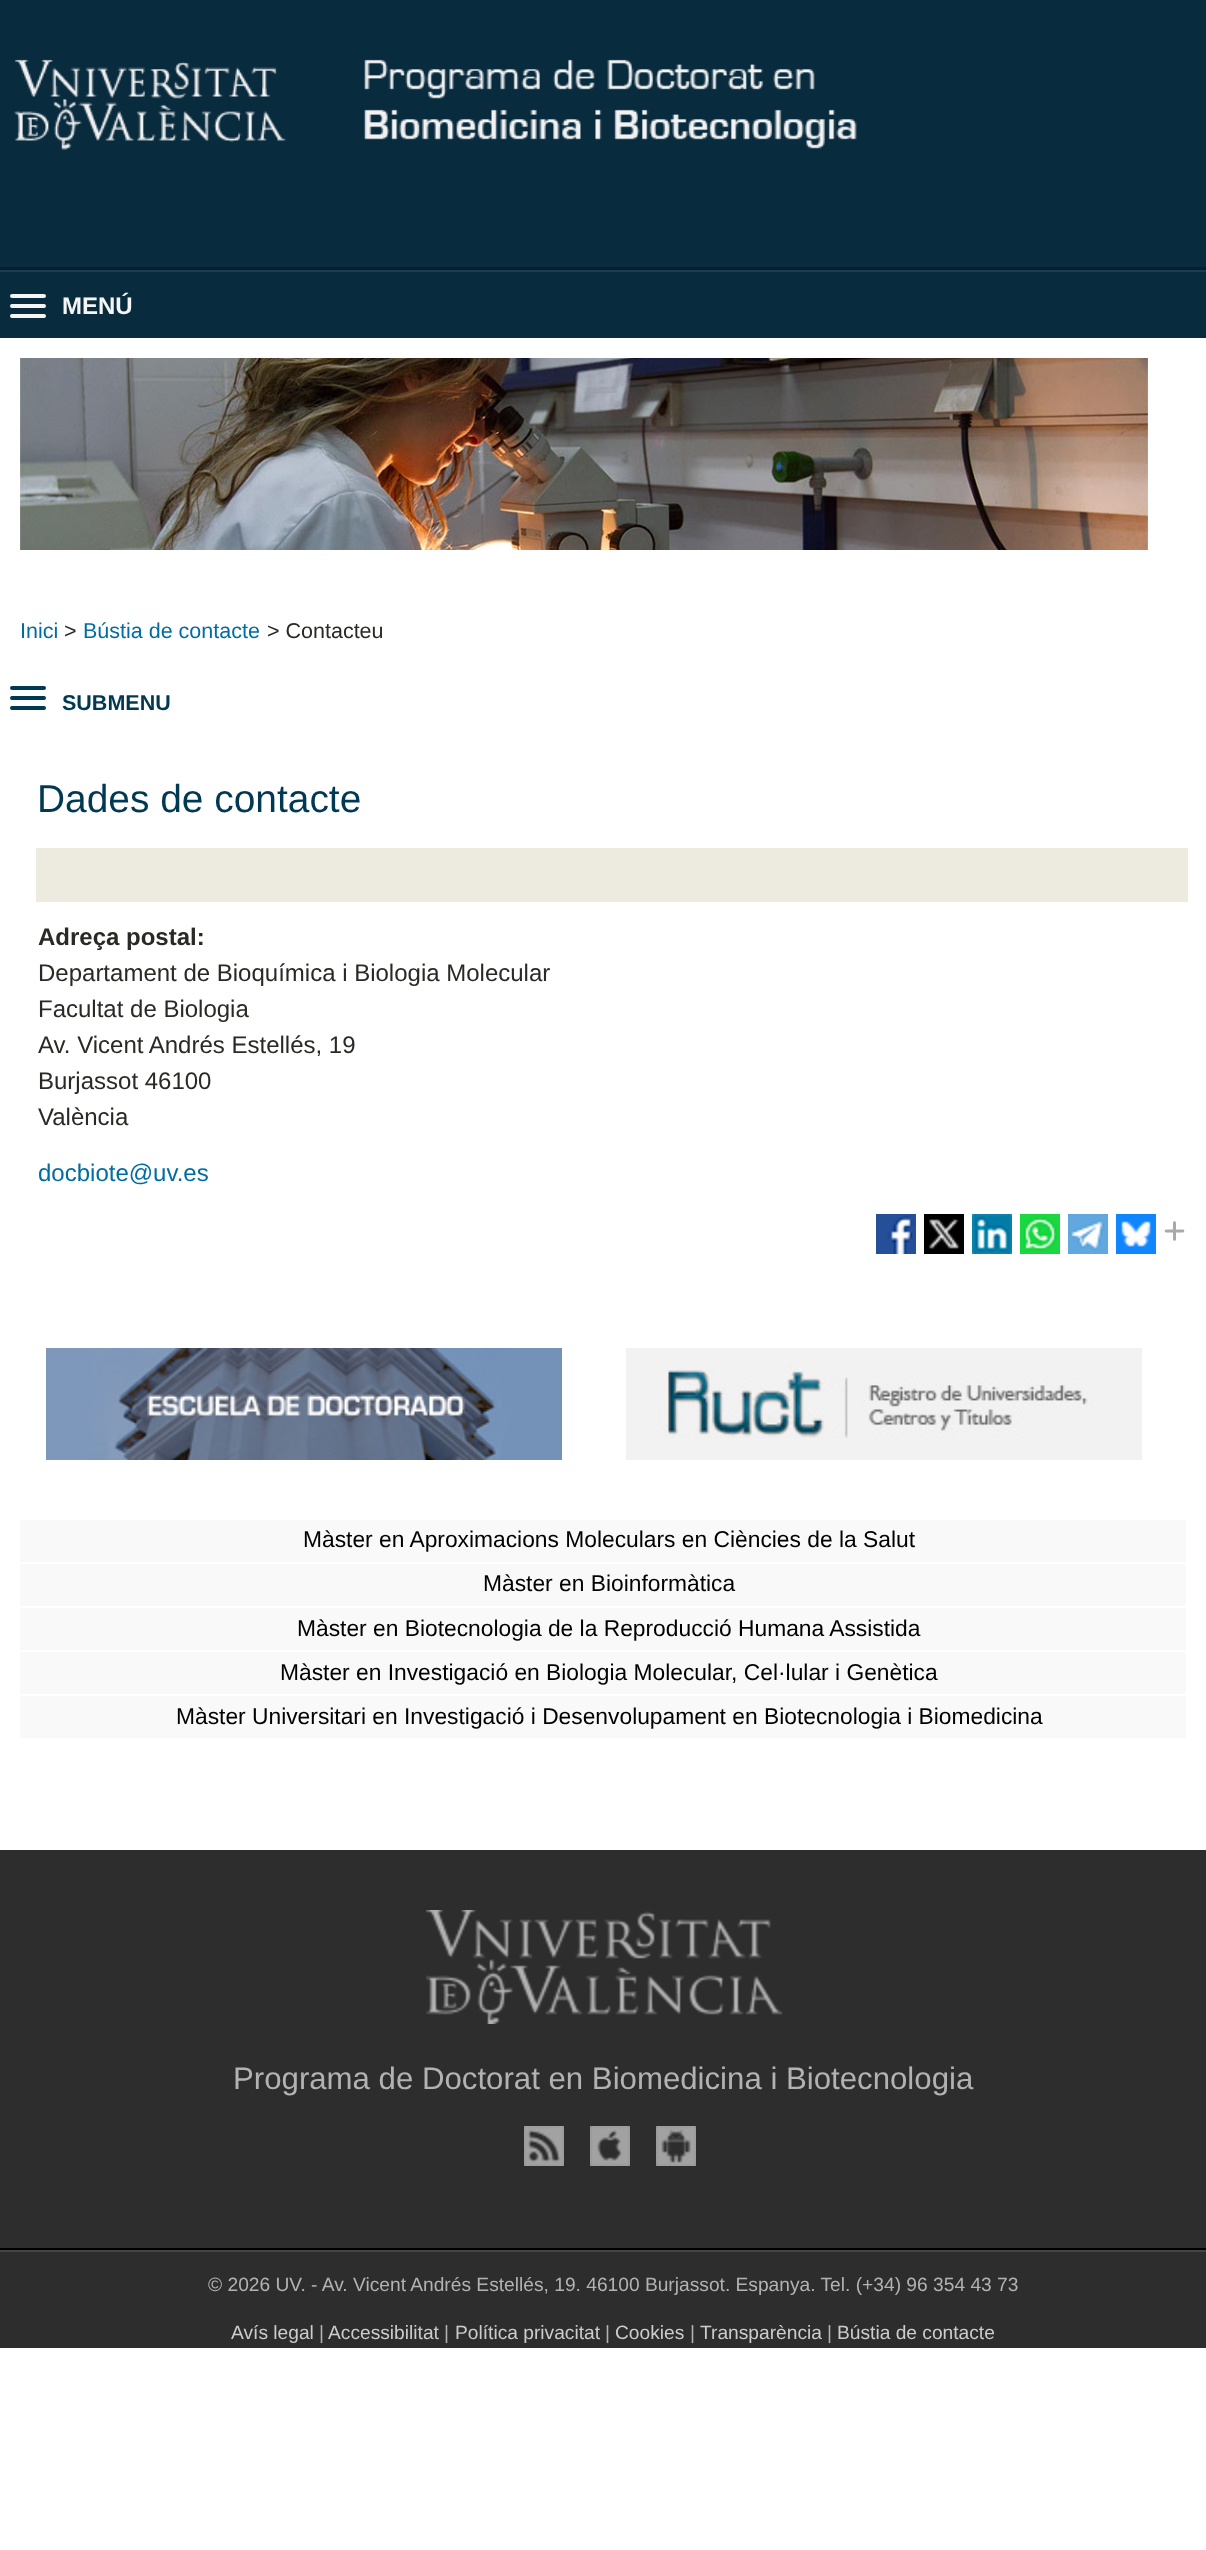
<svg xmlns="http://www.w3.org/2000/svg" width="1206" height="2550">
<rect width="100%" height="100%" fill="#fff"/>
<rect width="1206" height="267" fill="#082b3e"/>
<rect y="267" width="1206" height="3" fill="#071e2b"/>
<image x="13" y="59" width="844" height="91" href="media/1.png"/>
<rect y="272" width="1206" height="66" fill="#082b3e"/>
<rect y="270" width="1206" height="2" fill="#1a3b5a"/>
<rect x="10" y="294" width="36" height="4" rx="2" fill="#f5f5f5"/>
<text x="62" y="314" style="font-family:Liberation Sans;font-size:24px;font-weight:bold;fill:#f5f5f5">MENÚ</text>
<rect x="10" y="304" width="36" height="4" rx="2" fill="#f5f5f5"/>
<rect x="10" y="314" width="36" height="4" rx="2" fill="#f5f5f5"/>
<image x="20" y="358" width="1128" height="192" href="media/2.png"/>
<text x="20" y="638" style="font-family:Liberation Sans;font-size:21.5px;fill:#016ca2">Inici</text>
<text x="64" y="638" style="font-family:Liberation Sans;font-size:21.5px;fill:#292a25">&gt;</text>
<text x="83" y="638" style="font-family:Liberation Sans;font-size:21.5px;fill:#016ca2">Bústia de contacte</text>
<text x="267" y="638" style="font-family:Liberation Sans;font-size:21.5px;fill:#292a25">&gt; Contacteu</text>
<rect x="10" y="686" width="36" height="4" rx="2" fill="#013952"/>
<rect x="10" y="696" width="36" height="4" rx="2" fill="#013952"/>
<text x="62" y="710" style="font-family:Liberation Sans;font-size:21.5px;font-weight:bold;fill:#013952">SUBMENU</text>
<rect x="10" y="706" width="36" height="4" rx="2" fill="#013952"/>
<text x="37" y="812" style="font-family:Liberation Sans;font-size:38.9px;fill:#013952">Dades de contacte</text>
<rect x="36" y="848" width="1152" height="54" fill="#edeadf"/>
<text x="38" y="945" style="font-family:Liberation Sans;font-size:24px;font-weight:bold;fill:#292a25">Adreça postal:</text>
<text x="38" y="981" style="font-family:Liberation Sans;font-size:24px;fill:#292a25">Departament de Bioquímica i Biologia Molecular</text>
<text x="38" y="1017" style="font-family:Liberation Sans;font-size:24px;fill:#292a25">Facultat de Biologia</text>
<text x="38" y="1053" style="font-family:Liberation Sans;font-size:24px;fill:#292a25">Av. Vicent Andrés Estellés, 19</text>
<text x="38" y="1089" style="font-family:Liberation Sans;font-size:24px;fill:#292a25">Burjassot 46100</text>
<text x="38" y="1125" style="font-family:Liberation Sans;font-size:24px;fill:#292a25">València</text>
<text x="38" y="1181" style="font-family:Liberation Sans;font-size:24px;fill:#016ca2">docbiote@uv.es</text>
<image x="876" y="1214" width="40" height="40" href="media/3.png"/>
<image x="924" y="1214" width="40" height="40" href="media/4.png"/>
<image x="972" y="1214" width="40" height="40" href="media/5.png"/>
<image x="1020" y="1214" width="40" height="40" href="media/6.png"/>
<image x="1068" y="1214" width="40" height="40" href="media/7.png"/>
<image x="1116" y="1214" width="40" height="40" href="media/8.png"/>
<image x="1164" y="1221" width="21" height="20" href="media/9.png"/>
<image x="46" y="1348" width="516" height="112" href="media/10.png"/>
<image x="626" y="1348" width="516" height="112" href="media/11.png"/>
<rect x="20" y="1520" width="1166" height="42" fill="#f9f9f9"/>
<text x="303" y="1547" style="font-family:Liberation Sans;font-size:22.8px;fill:#000">Màster en Aproximacions Moleculars en Ciències de la Salut</text>
<rect x="20" y="1564" width="1166" height="42" fill="#f9f9f9"/>
<text x="483" y="1591" style="font-family:Liberation Sans;font-size:22.8px;fill:#000">Màster en Bioinformàtica</text>
<rect x="20" y="1608" width="1166" height="42" fill="#f9f9f9"/>
<text x="297" y="1636" style="font-family:Liberation Sans;font-size:22.8px;fill:#000">Màster en Biotecnologia de la Reproducció Humana Assistida</text>
<rect x="20" y="1652" width="1166" height="42" fill="#f9f9f9"/>
<text x="280" y="1680" style="font-family:Liberation Sans;font-size:22.8px;fill:#000">Màster en Investigació en Biologia Molecular, Cel·lular i Genètica</text>
<rect x="20" y="1696" width="1166" height="42" fill="#f9f9f9"/>
<text x="176" y="1724" style="font-family:Liberation Sans;font-size:22.8px;fill:#000">Màster Universitari en Investigació i Desenvolupament en Biotecnologia i Biomedicina</text>
<rect y="1850" width="1206" height="498" fill="#2d2d2d"/>
<image x="426" y="1910" width="356" height="114" href="media/12.png"/>
<text x="233" y="2089" style="font-family:Liberation Sans;font-size:31.2px;fill:#b2b2b2">Programa de Doctorat en Biomedicina i Biotecnologia</text>
<image x="524" y="2126" width="40" height="40" href="media/13.png"/>
<image x="590" y="2126" width="40" height="40" href="media/14.png"/>
<image x="656" y="2126" width="40" height="40" href="media/15.png"/>
<rect y="2248" width="1206" height="2" fill="#000"/>
<rect y="2250" width="1206" height="2" fill="#444"/>
<text x="208" y="2291" style="font-family:Liberation Sans;font-size:19.2px;fill:#b2b2b2">© 2026 UV. - Av. Vicent Andrés Estellés, 19. 46100 Burjassot. Espanya. Tel. (+34) 96 354 43 73</text>
<text x="231" y="2339" style="font-family:Liberation Sans;font-size:19.2px;fill:#ccc">Avís legal</text>
<text x="319" y="2339" style="font-family:Liberation Sans;font-size:19.2px;fill:#b2b2b2">|</text>
<text x="328" y="2339" style="font-family:Liberation Sans;font-size:19.2px;fill:#ccc">Accessibilitat</text>
<text x="444" y="2339" style="font-family:Liberation Sans;font-size:19.2px;fill:#b2b2b2">|</text>
<text x="455" y="2339" style="font-family:Liberation Sans;font-size:19.2px;fill:#ccc">Política privacitat</text>
<text x="605" y="2339" style="font-family:Liberation Sans;font-size:19.2px;fill:#b2b2b2">|</text>
<text x="615" y="2339" style="font-family:Liberation Sans;font-size:19.2px;fill:#ccc">Cookies</text>
<text x="690" y="2339" style="font-family:Liberation Sans;font-size:19.2px;fill:#b2b2b2">|</text>
<text x="700" y="2339" style="font-family:Liberation Sans;font-size:19.2px;fill:#ccc">Transparència</text>
<text x="827" y="2339" style="font-family:Liberation Sans;font-size:19.2px;fill:#b2b2b2">|</text>
<text x="837" y="2339" style="font-family:Liberation Sans;font-size:19.2px;fill:#ccc">Bústia de contacte</text>
</svg>
